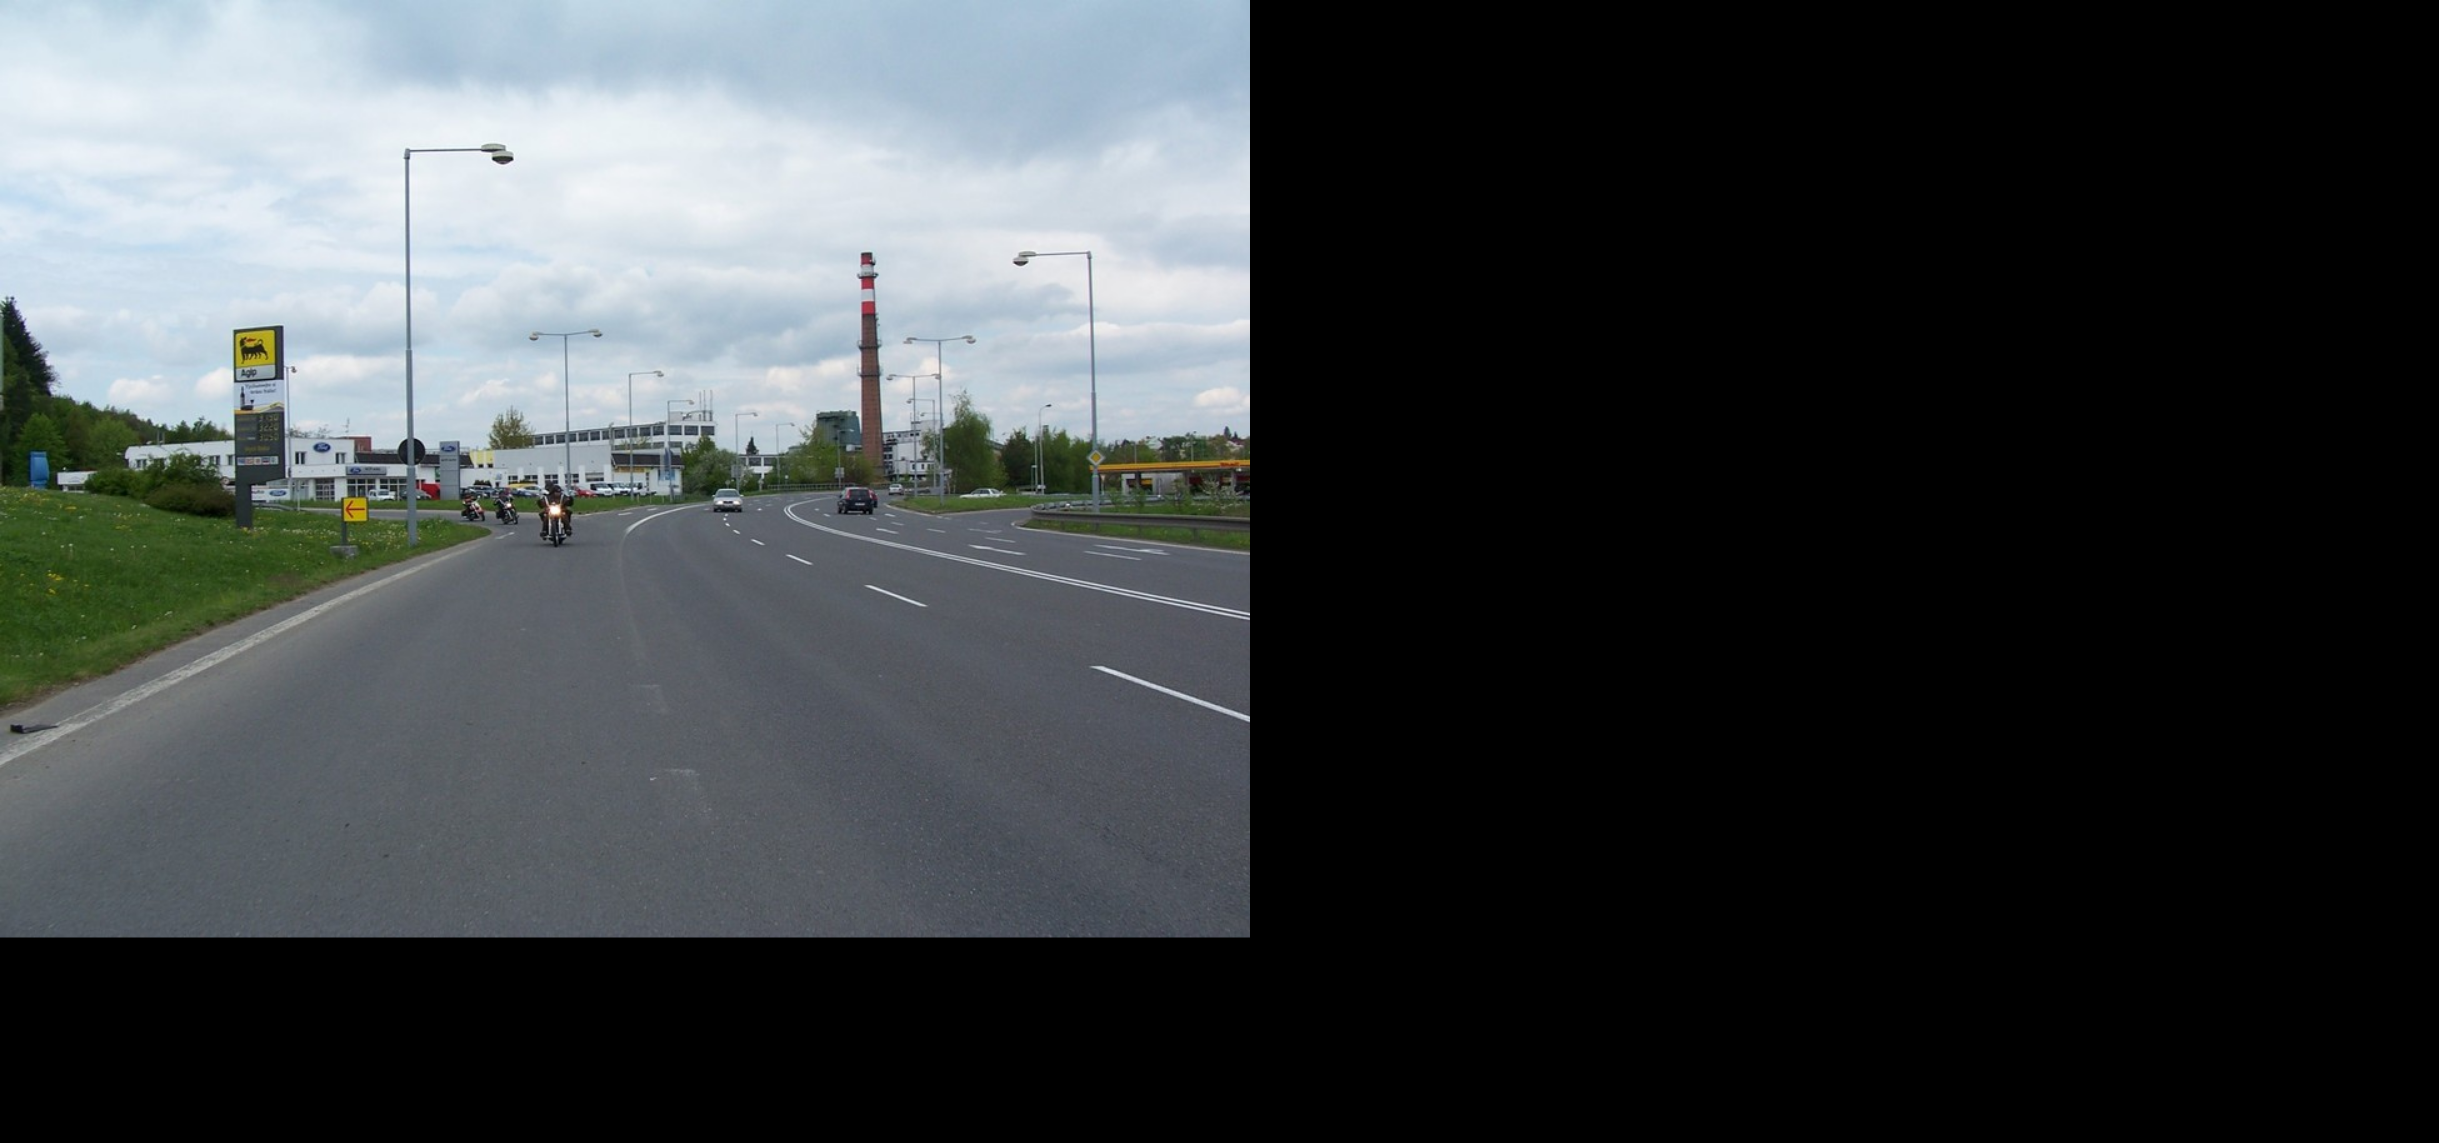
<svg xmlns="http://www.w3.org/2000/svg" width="2439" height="1143">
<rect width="100%" height="100%" fill="#000"/>
<image x="0" y="0" width="1250" height="938" href="media/1.png"/>
</svg>
